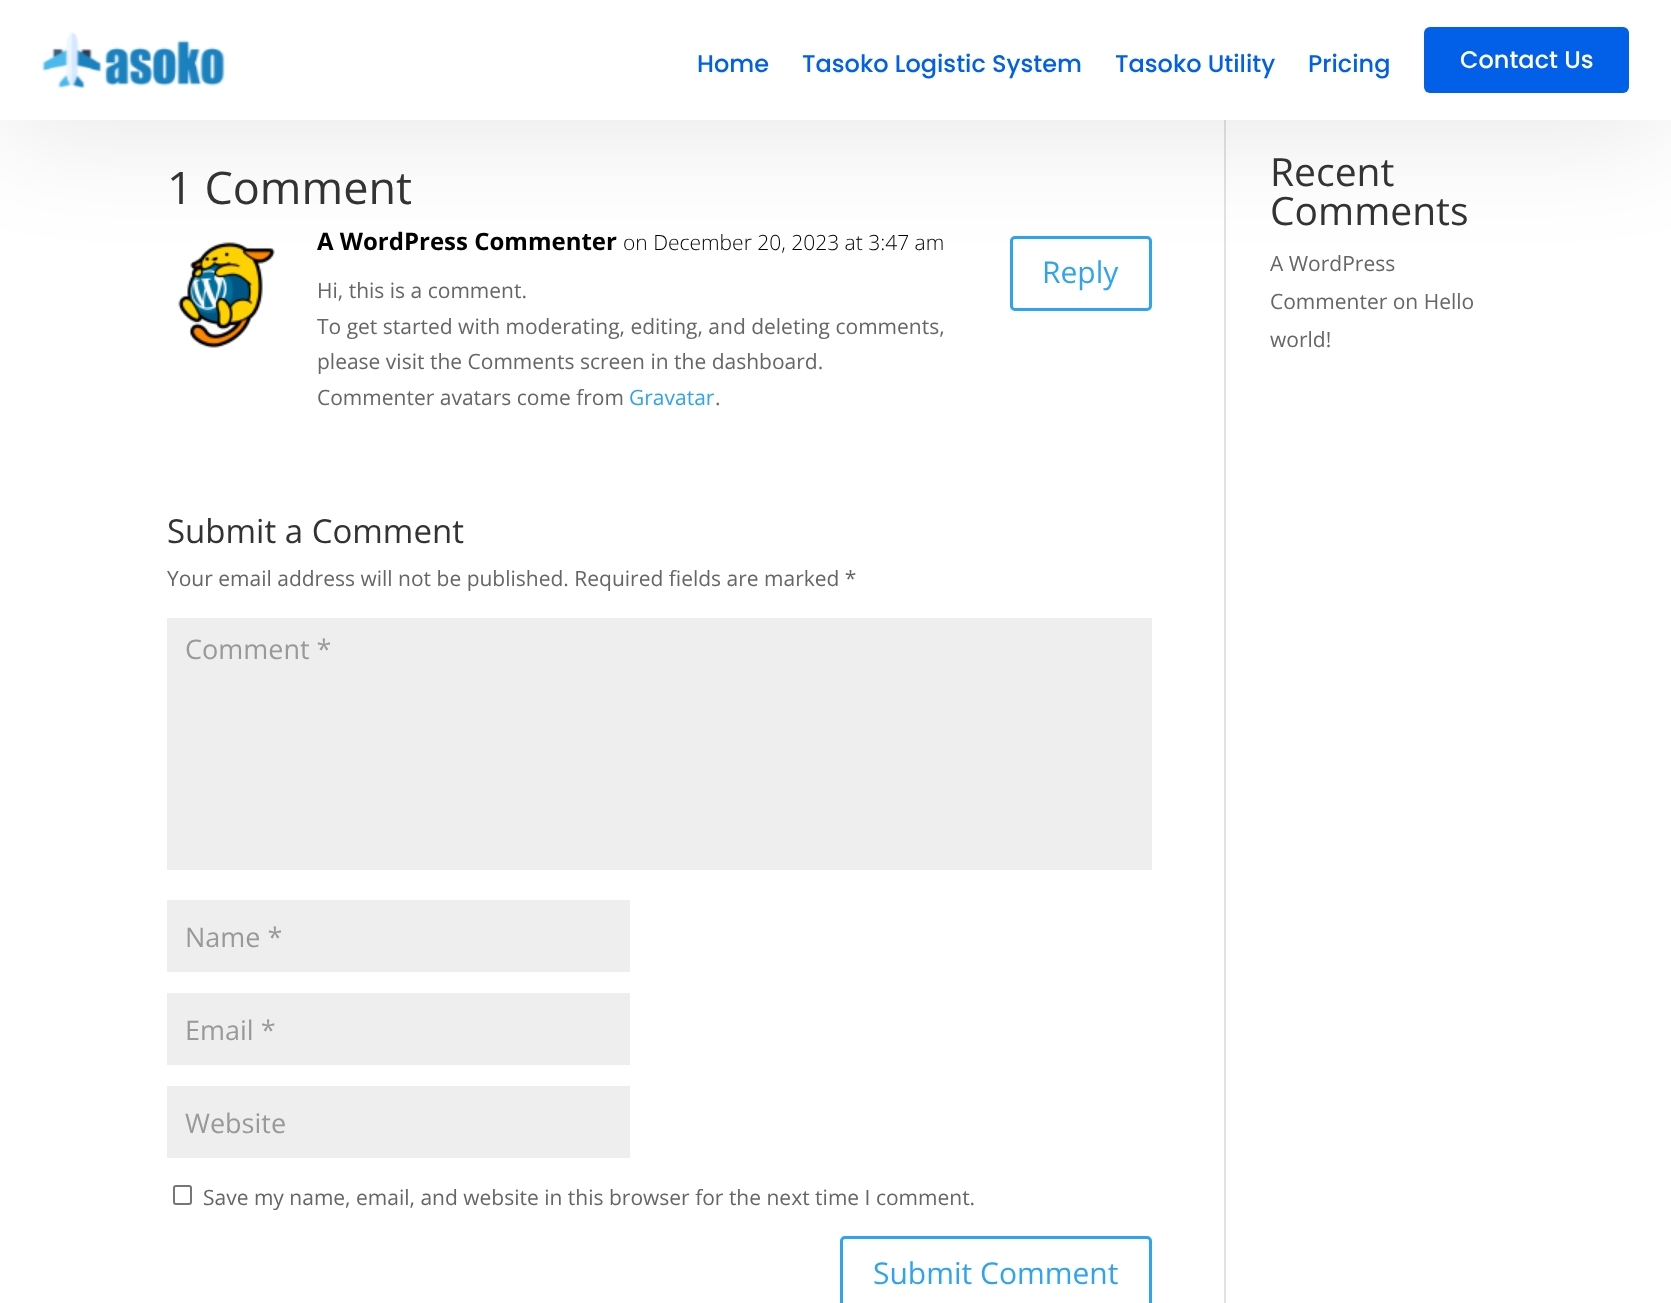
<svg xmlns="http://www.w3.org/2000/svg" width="1671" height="1303">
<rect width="100%" height="100%" fill="#fff"/>
<rect x="1224" y="120" width="2" height="1183" fill="#e2e2e2"/>
<image x="178" y="242" width="97" height="106" href="media/2.png"/>
<rect x="1011.5" y="237.5" width="139" height="72" rx="3.5" fill="none" stroke="#2ea3f2" stroke-width="3"/>
<rect y="8" width="1671" height="120" fill="#0000001a" filter="blur(60px)"/>
<rect width="1671" height="120" fill="#fff"/>
<image x="41" y="32" width="184" height="57" href="media/1.png"/>
<text x="697" y="72" style="font-family:Poppins;font-size:24px;font-weight:500;fill:#0160e7">Home</text>
<text x="802" y="72" style="font-family:Poppins;font-size:24px;font-weight:500;fill:#0160e7">Tasoko Logistic System</text>
<text x="1115" y="72" style="font-family:Poppins;font-size:24px;font-weight:500;fill:#0160e7">Tasoko Utility</text>
<text x="1308" y="72" style="font-family:Poppins;font-size:24px;font-weight:500;fill:#0160e7">Pricing</text>
<rect x="1424" y="27" width="205" height="66" rx="6" fill="#0160e7"/>
<text x="1460" y="68" style="font-family:Poppins;font-size:24px;font-weight:500;fill:#fff">Contact Us</text>
<text x="167" y="204" style="font-family:Open Sans;font-size:45px;fill:#333">1 Comment</text>
<text x="317" y="250" style="font-family:Open Sans;font-size:24px;font-weight:bold;fill:#000">A WordPress Commenter</text>
<text x="623" y="250" style="font-family:Open Sans;font-size:21px;font-weight:300;fill:#000">on December 20, 2023 at 3:47 am</text>
<text x="1042" y="283" style="font-family:Open Sans;font-size:30px;fill:#2ea3f2">Reply</text>
<text x="317" y="298" style="font-family:Open Sans;font-size:21px;fill:#666">Hi, this is a comment.</text>
<text x="317" y="334" style="font-family:Open Sans;font-size:21px;fill:#666">To get started with moderating, editing, and deleting comments,</text>
<text x="317" y="369" style="font-family:Open Sans;font-size:21px;fill:#666">please visit the Comments screen in the dashboard.</text>
<text x="317" y="405" style="font-family:Open Sans;font-size:21px;fill:#666">Commenter avatars come from</text>
<text x="629" y="405" style="font-family:Open Sans;font-size:21px;fill:#2ea3f2">Gravatar</text>
<text x="715" y="405" style="font-family:Open Sans;font-size:21px;fill:#666">.</text>
<text x="167" y="543" style="font-family:Open Sans;font-size:33px;fill:#333">Submit a Comment</text>
<text x="167" y="586" style="font-family:Open Sans;font-size:21px;fill:#666">Your email address will not be published. Required fields are marked *</text>
<rect x="167" y="618" width="985" height="252" fill="#eee"/>
<text x="185" y="659" style="font-family:Open Sans;font-size:27px;fill:#999">Comment *</text>
<rect x="167" y="900" width="463" height="72" fill="#eee"/>
<text x="185" y="947" style="font-family:Open Sans;font-size:27px;fill:#999">Name *</text>
<rect x="167" y="993" width="463" height="72" fill="#eee"/>
<text x="185" y="1040" style="font-family:Open Sans;font-size:27px;fill:#999">Email *</text>
<rect x="167" y="1086" width="463" height="72" fill="#eee"/>
<text x="185" y="1133" style="font-family:Open Sans;font-size:27px;fill:#999">Website</text>
<rect x="174" y="1186" width="17" height="18" rx="2" fill="none" stroke="#767676" stroke-width="2"/>
<text x="203" y="1205" style="font-family:Open Sans;font-size:21px;fill:#666">Save my name, email, and website in this browser for the next time I comment.</text>
<rect x="841.5" y="1237.5" width="309" height="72" rx="3.5" fill="none" stroke="#2ea3f2" stroke-width="3"/>
<text x="873" y="1284" style="font-family:Open Sans;font-size:30px;fill:#2ea3f2">Submit Comment</text>
<text x="1270" y="186" style="font-family:Open Sans;font-size:39px;fill:#333">Recent</text>
<text x="1270" y="225" style="font-family:Open Sans;font-size:39px;fill:#333">Comments</text>
<text x="1270" y="271" style="font-family:Open Sans;font-size:21px;fill:#666">A WordPress</text>
<text x="1270" y="309" style="font-family:Open Sans;font-size:21px;fill:#666">Commenter on Hello</text>
<text x="1270" y="347" style="font-family:Open Sans;font-size:21px;fill:#666">world!</text>
</svg>
